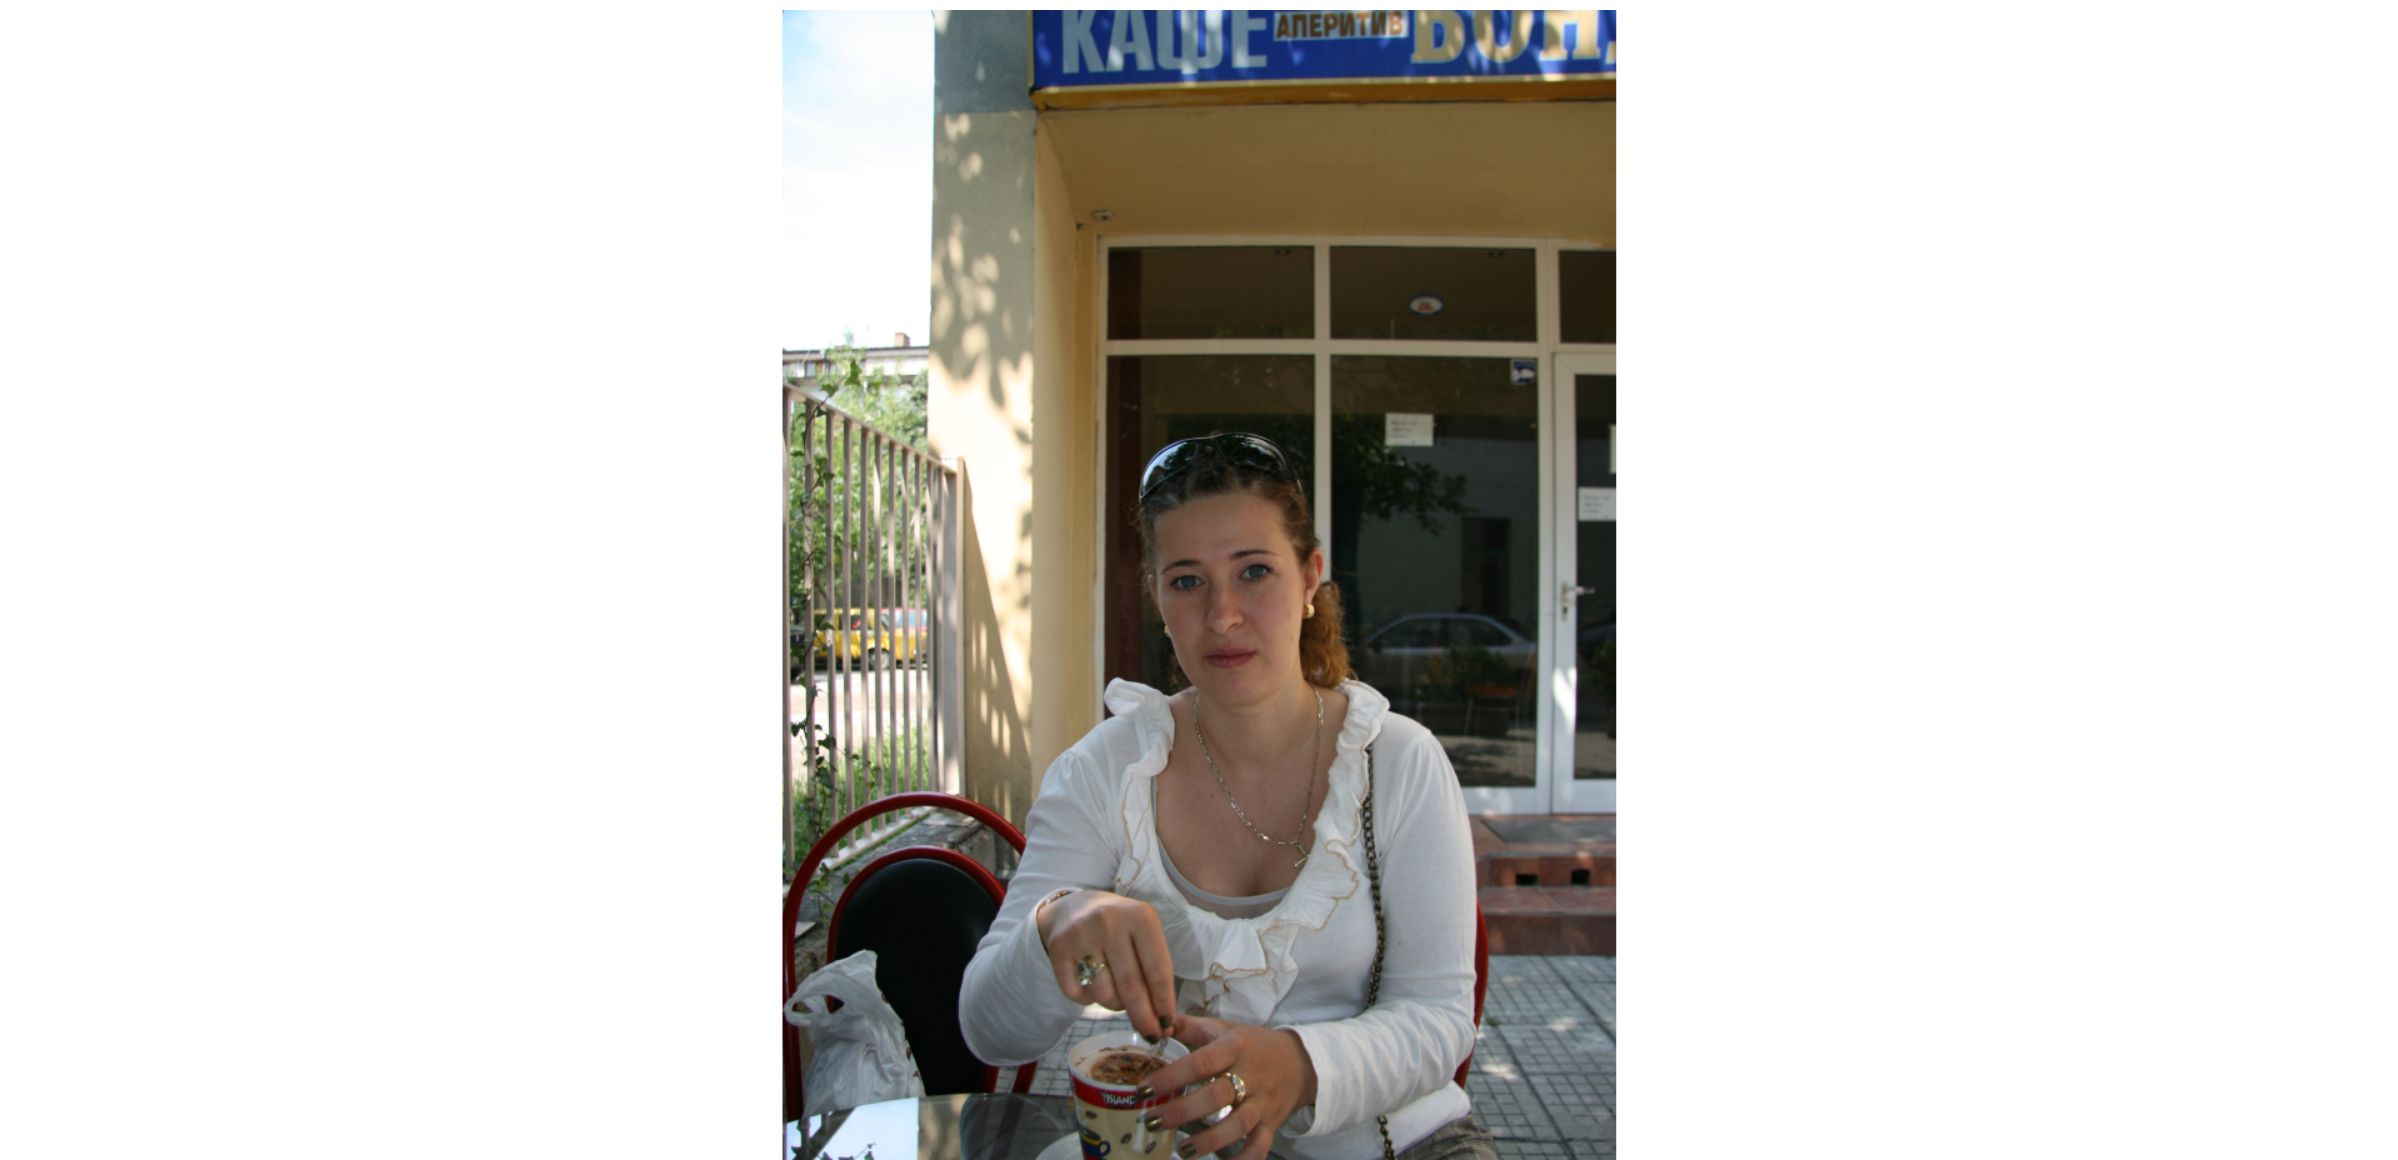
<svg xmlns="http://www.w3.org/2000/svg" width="2398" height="1160">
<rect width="100%" height="100%" fill="#fff"/>
<image x="782" y="10" width="835" height="1150" href="media/1.png"/>
</svg>
